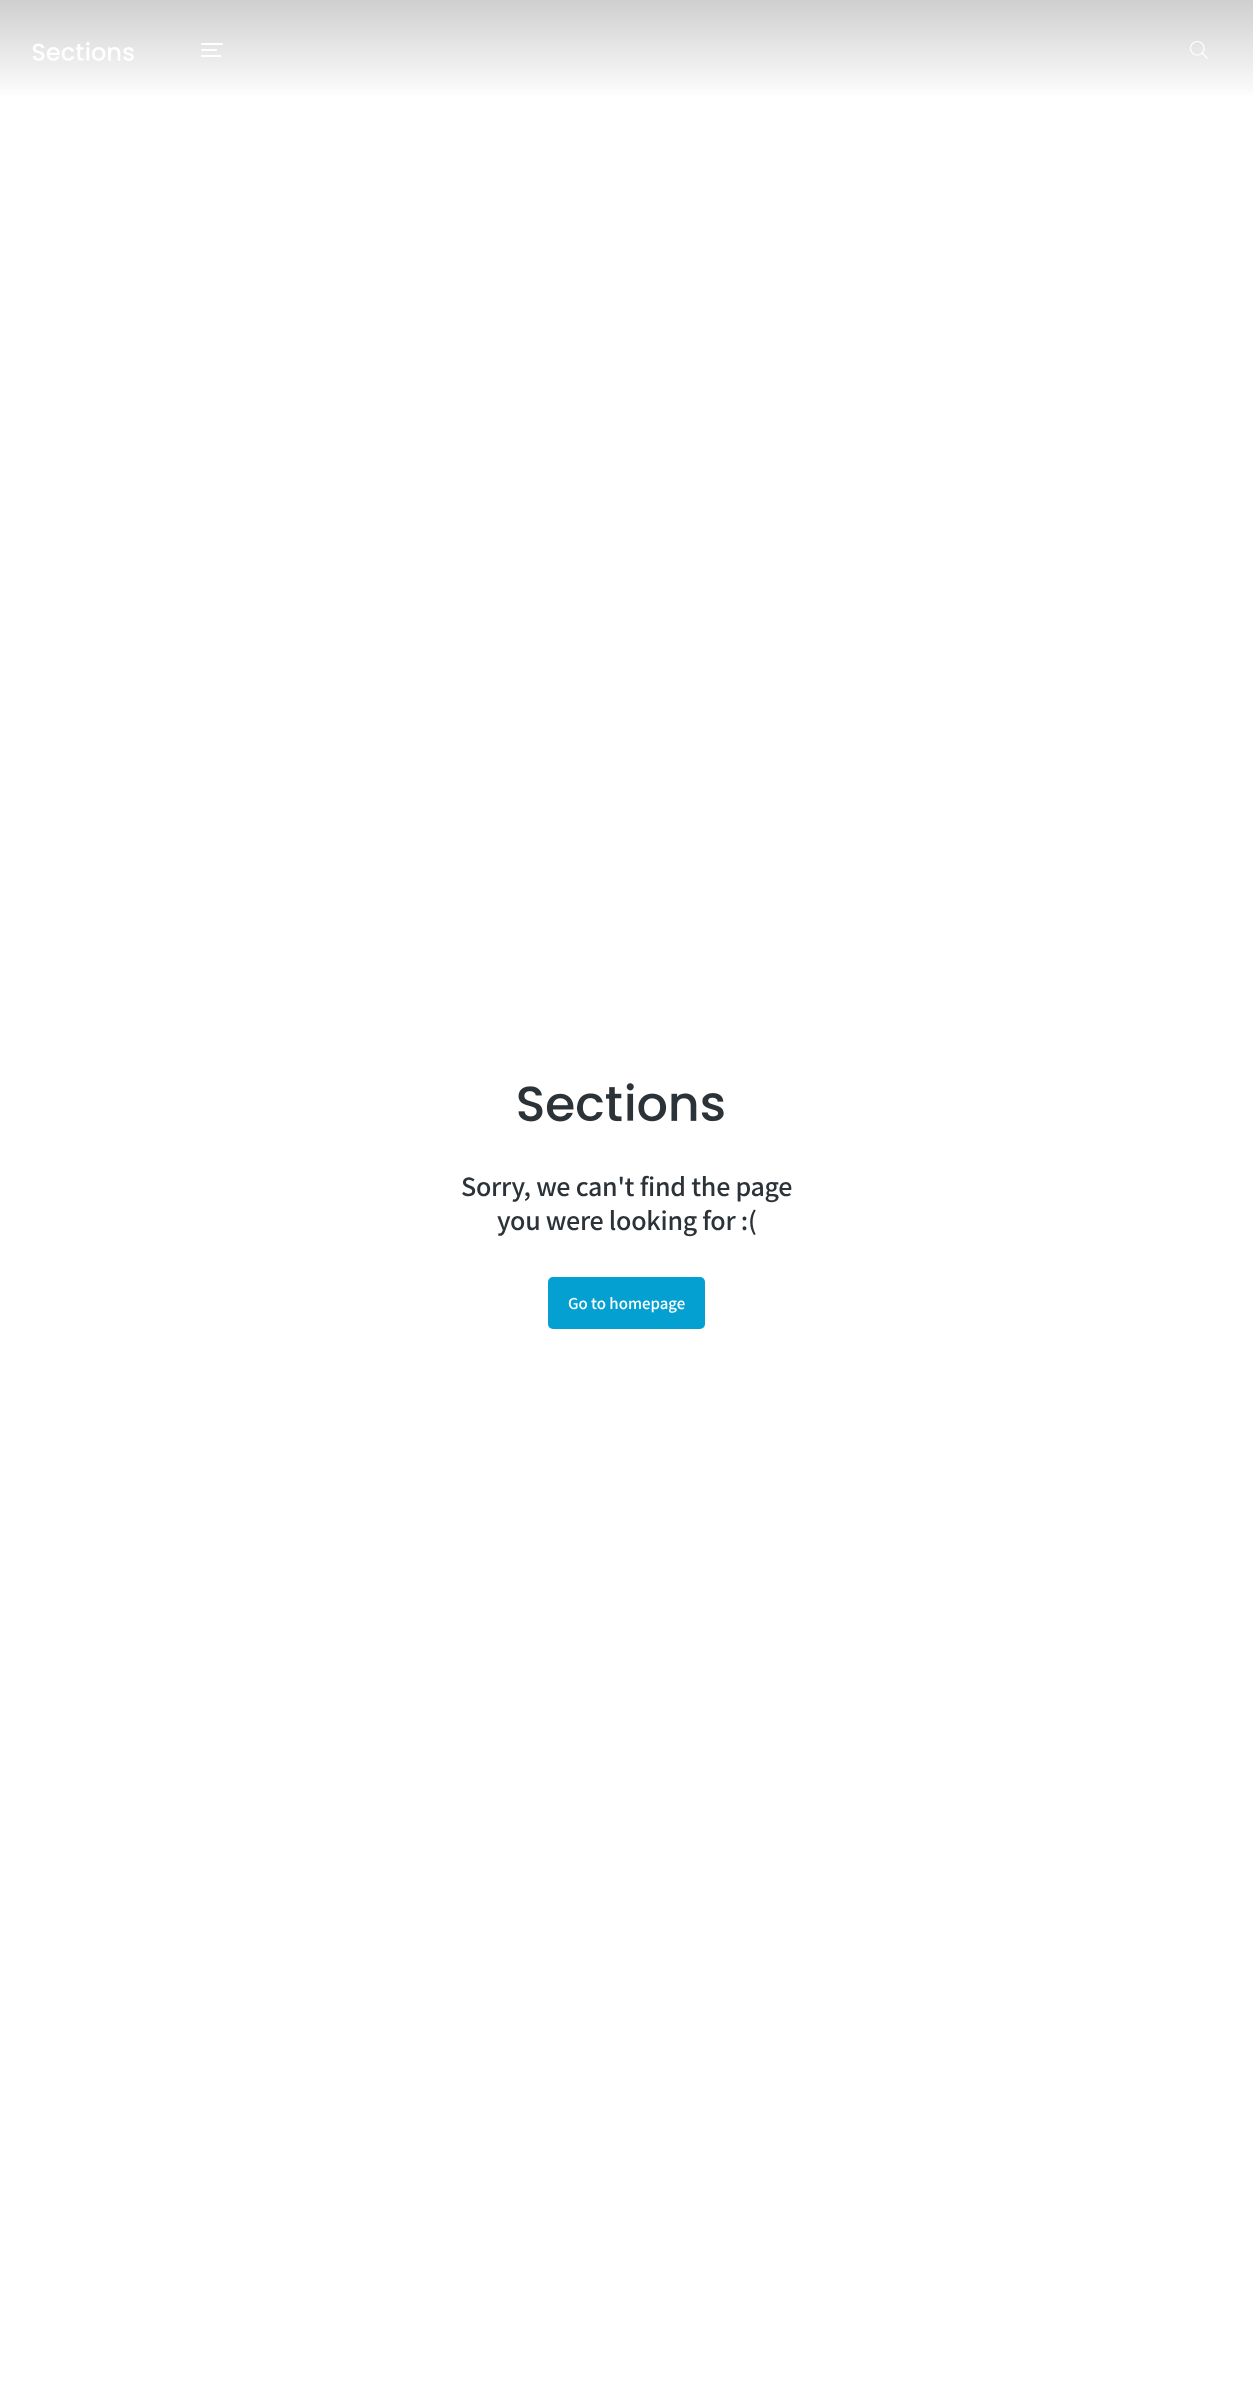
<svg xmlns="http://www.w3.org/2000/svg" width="1253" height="2401">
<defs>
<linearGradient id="g1" gradientUnits="userSpaceOnUse" x1="627" y1="0" x2="627" y2="100"><stop offset="0" stop-color="#cfcfcf"/><stop offset="1" stop-color="#fff"/></linearGradient>
</defs>
<rect width="100%" height="100%" fill="#fff"/>
<rect width="1253" height="95" fill="url(#g1)"/>
<image x="32" y="42" width="102" height="19" href="media/1.png"/>
<image x="201" y="43" width="22" height="14" href="media/2.png"/>
<image x="1190" y="41" width="18" height="18" href="media/3.png"/>
<image x="518" y="1083" width="206" height="39" href="media/4.png"/>
<text x="461" y="1196" style="font-family:Noto Sans JP;font-size:25px;font-weight:500;letter-spacing:-0.25px;fill:#2c3338">Sorry, we can't find the page</text>
<text x="497" y="1230" style="font-family:Noto Sans JP;font-size:25px;font-weight:500;letter-spacing:-0.25px;fill:#2c3338">you were looking for :(</text>
<rect x="548" y="1277" width="157" height="52" rx="5" fill="#03a0d1"/>
<text x="568" y="1309" style="font-family:Noto Sans JP;font-size:15px;font-weight:500;fill:#fff">Go to homepage</text>
</svg>
